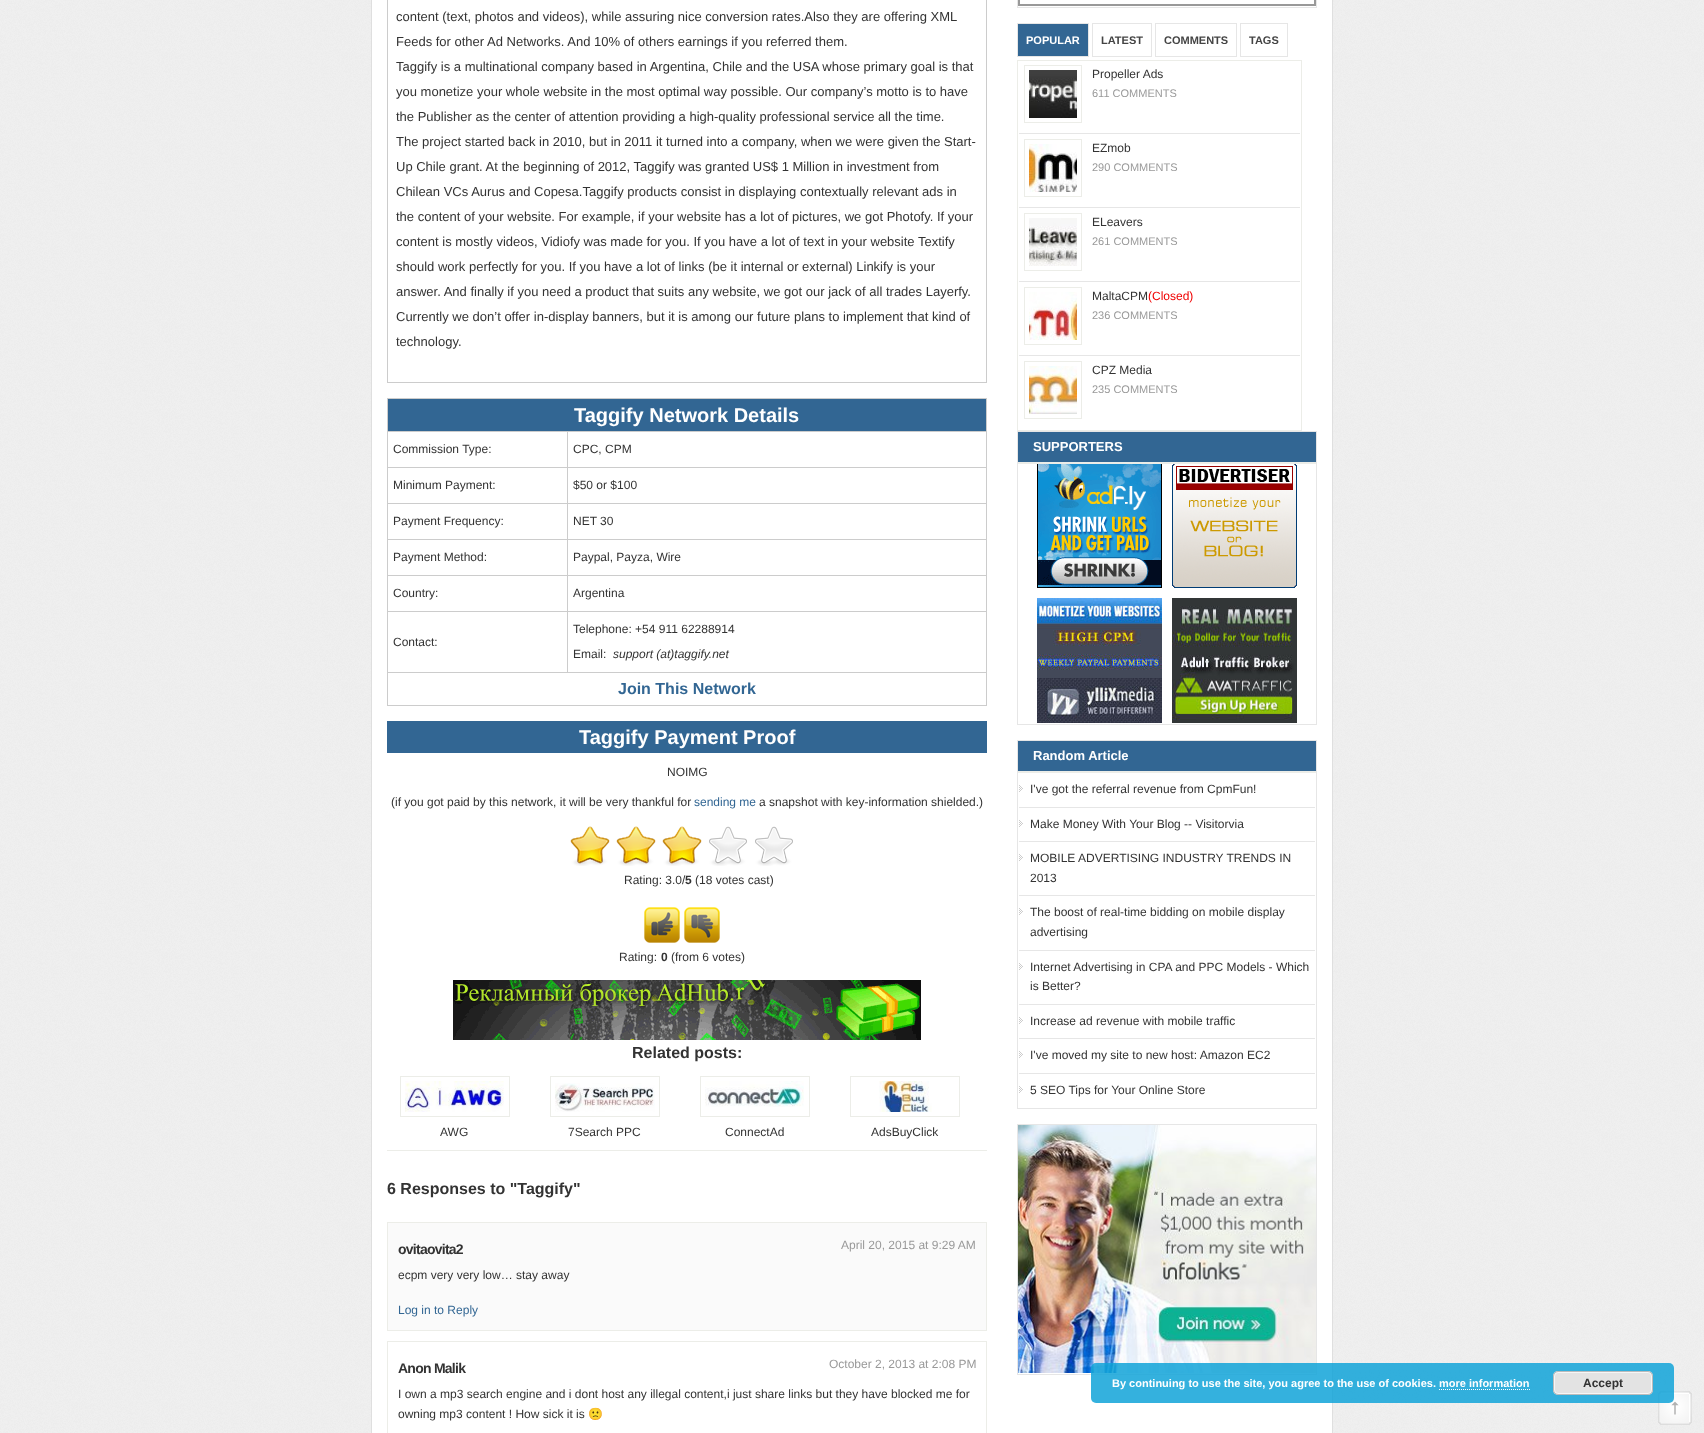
<svg xmlns="http://www.w3.org/2000/svg" width="1704" height="1433">
<rect width="100%" height="100%" fill="#fff"/>
<image x="0" y="0" width="1704" height="1433" href="media/1.png"/>
<rect x="371.5" y="-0.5" width="961" height="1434" fill="#fff" stroke="#dfdfdf"/>
<rect x="387.5" y="-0.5" width="599" height="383" fill="none" stroke="#ccc"/>
<text x="396" y="21" style="font-family:Liberation Sans;font-size:13px;fill:#333">content (text, photos and videos), while assuring nice conversion rates.Also they are offering XML</text>
<text x="396" y="46" style="font-family:Liberation Sans;font-size:13px;fill:#333">Feeds for other Ad Networks. And 10% of others earnings if you referred them.</text>
<text x="396" y="71" style="font-family:Liberation Sans;font-size:13px;fill:#333">Taggify is a multinational company based in Argentina, Chile and the USA whose primary goal is that</text>
<text x="396" y="96" style="font-family:Liberation Sans;font-size:13px;fill:#333">you monetize your whole website in the most optimal way possible. Our company’s motto is to have</text>
<text x="396" y="121" style="font-family:Liberation Sans;font-size:13px;fill:#333">the Publisher as the center of attention providing a high-quality professional service all the time.</text>
<text x="396" y="146" style="font-family:Liberation Sans;font-size:13px;fill:#333">The project started back in 2010, but in 2011 it turned into a company, when we were given the Start-</text>
<text x="396" y="171" style="font-family:Liberation Sans;font-size:13px;fill:#333">Up Chile grant. At the beginning of 2012, Taggify was granted US$ 1 Million in investment from</text>
<text x="396" y="196" style="font-family:Liberation Sans;font-size:13px;fill:#333">Chilean VCs Aurus and Copesa.Taggify products consist in displaying contextually relevant ads in</text>
<text x="396" y="221" style="font-family:Liberation Sans;font-size:13px;fill:#333">the content of your website. For example, if your website has a lot of pictures, we got Photofy. If your</text>
<text x="396" y="246" style="font-family:Liberation Sans;font-size:13px;fill:#333">content is mostly videos, Vidiofy was made for you. If you have a lot of text in your website Textify</text>
<text x="396" y="271" style="font-family:Liberation Sans;font-size:13px;fill:#333">should work perfectly for you. If you have a lot of links (be it internal or external) Linkify is your</text>
<text x="396" y="296" style="font-family:Liberation Sans;font-size:13px;fill:#333">answer. And finally if you need a product that suits any website, we got our jack of all trades Layerfy.</text>
<text x="396" y="321" style="font-family:Liberation Sans;font-size:13px;fill:#333">Currently we don’t offer in-display banners, but it is among our future plans to implement that kind of</text>
<text x="396" y="346" style="font-family:Liberation Sans;font-size:13px;fill:#333">technology.</text>
<rect x="388" y="399" width="598" height="32" fill="#326693"/>
<rect x="387" y="398" width="600" height="1" fill="#ccc"/>
<rect x="387" y="431" width="600" height="1" fill="#ccc"/>
<rect x="387" y="467" width="600" height="1" fill="#ccc"/>
<rect x="387" y="503" width="600" height="1" fill="#ccc"/>
<rect x="387" y="539" width="600" height="1" fill="#ccc"/>
<rect x="387" y="575" width="600" height="1" fill="#ccc"/>
<rect x="387" y="611" width="600" height="1" fill="#ccc"/>
<rect x="387" y="672" width="600" height="1" fill="#ccc"/>
<rect x="986" y="672" width="1" height="34" fill="#ccc"/>
<rect x="986" y="611" width="1" height="62" fill="#ccc"/>
<rect x="986" y="575" width="1" height="37" fill="#ccc"/>
<rect x="986" y="539" width="1" height="37" fill="#ccc"/>
<rect x="986" y="503" width="1" height="37" fill="#ccc"/>
<rect x="986" y="467" width="1" height="37" fill="#ccc"/>
<rect x="986" y="431" width="1" height="37" fill="#ccc"/>
<rect x="986" y="398" width="1" height="34" fill="#ccc"/>
<rect x="387" y="705" width="600" height="1" fill="#ccc"/>
<rect x="387" y="672" width="1" height="34" fill="#ccc"/>
<rect x="387" y="611" width="1" height="62" fill="#ccc"/>
<rect x="387" y="575" width="1" height="37" fill="#ccc"/>
<rect x="387" y="539" width="1" height="37" fill="#ccc"/>
<rect x="387" y="503" width="1" height="37" fill="#ccc"/>
<rect x="387" y="467" width="1" height="37" fill="#ccc"/>
<rect x="387" y="431" width="1" height="37" fill="#ccc"/>
<rect x="387" y="398" width="1" height="34" fill="#ccc"/>
<text x="574" y="422" style="font-family:Liberation Sans;font-size:20px;font-weight:bold;fill:#fff">Taggify Network Details</text>
<text x="393" y="453" style="font-family:Liberation Sans;font-size:12px;fill:#333">Commission Type:</text>
<text x="573" y="453" style="font-family:Liberation Sans;font-size:12px;fill:#333">CPC, CPM</text>
<text x="393" y="489" style="font-family:Liberation Sans;font-size:12px;fill:#333">Minimum Payment:</text>
<text x="573" y="489" style="font-family:Liberation Sans;font-size:12px;fill:#333">$50 or $100</text>
<text x="393" y="525" style="font-family:Liberation Sans;font-size:12px;fill:#333">Payment Frequency:</text>
<text x="573" y="525" style="font-family:Liberation Sans;font-size:12px;fill:#333">NET 30</text>
<text x="393" y="561" style="font-family:Liberation Sans;font-size:12px;fill:#333">Payment Method:</text>
<text x="573" y="561" style="font-family:Liberation Sans;font-size:12px;fill:#333">Paypal, Payza, Wire</text>
<text x="393" y="597" style="font-family:Liberation Sans;font-size:12px;fill:#333">Country:</text>
<text x="573" y="597" style="font-family:Liberation Sans;font-size:12px;fill:#333">Argentina</text>
<text x="393" y="646" style="font-family:Liberation Sans;font-size:12px;fill:#333">Contact:</text>
<rect x="567" y="431" width="1" height="242" fill="#ccc"/>
<text x="573" y="633" style="font-family:Liberation Sans;font-size:12px;fill:#333">Telephone: +54 911 62288914</text>
<text x="573" y="658" style="font-family:Liberation Sans;font-size:12px;fill:#333">Email:</text>
<text x="613" y="658" style="font-family:Liberation Sans;font-size:12px;font-style:italic;fill:#333">support (at)taggify.net</text>
<text x="618" y="694" style="font-family:Liberation Sans;font-size:16px;font-weight:bold;fill:#326693">Join This Network</text>
<rect x="387" y="721" width="600" height="32" fill="#326693"/>
<text x="579" y="744" style="font-family:Liberation Sans;font-size:20px;font-weight:bold;fill:#fff">Taggify Payment Proof</text>
<text x="667" y="776" style="font-family:Liberation Sans;font-size:12px;fill:#333">NOIMG</text>
<text x="391" y="806" style="font-family:Liberation Sans;font-size:12px;fill:#333">(if you got paid by this network, it will be very thankful for</text>
<text x="694" y="806" style="font-family:Liberation Sans;font-size:12px;fill:#326693">sending me</text>
<text x="759" y="806" style="font-family:Liberation Sans;font-size:12px;fill:#333">a snapshot with key-information shielded.)</text>
<image x="571" y="826" width="222" height="40" href="media/2.png"/>
<image x="570" y="826" width="132" height="38" href="media/3.png"/>
<text x="624" y="884" style="font-family:Liberation Sans;font-size:12px;fill:#333">Rating: 3.0/</text>
<text x="685" y="884" style="font-family:Liberation Sans;font-size:12px;font-weight:bold;fill:#333">5</text>
<text x="695" y="884" style="font-family:Liberation Sans;font-size:12px;fill:#333">(18 votes cast)</text>
<image x="644" y="907" width="36" height="36" href="media/4.png"/>
<image x="684" y="907" width="36" height="36" href="media/5.png"/>
<text x="619" y="961" style="font-family:Liberation Sans;font-size:12px;fill:#333">Rating:</text>
<text x="661" y="961" style="font-family:Liberation Sans;font-size:12px;font-weight:bold;fill:#333">0</text>
<text x="671" y="961" style="font-family:Liberation Sans;font-size:12px;fill:#333">(from 6 votes)</text>
<image x="453" y="980" width="468" height="60" href="media/6.png"/>
<rect x="387" y="1150" width="600" height="1" fill="#ecede8"/>
<text x="632" y="1058" style="font-family:Liberation Sans;font-size:16px;font-weight:bold;fill:#333">Related posts:</text>
<rect x="400.5" y="1076.5" width="109" height="40" fill="none" stroke="#ecede8"/>
<image x="405" y="1081" width="99" height="31" href="media/7.png"/>
<text x="440" y="1136" style="font-family:Liberation Sans;font-size:12px;fill:#333">AWG</text>
<rect x="550.5" y="1076.5" width="109" height="40" fill="none" stroke="#ecede8"/>
<image x="555" y="1083" width="100" height="29" href="media/8.png"/>
<text x="568" y="1136" style="font-family:Liberation Sans;font-size:12px;fill:#333">7Search PPC</text>
<rect x="700.5" y="1076.5" width="109" height="40" fill="none" stroke="#ecede8"/>
<image x="705" y="1081" width="99" height="26" href="media/9.png"/>
<text x="725" y="1136" style="font-family:Liberation Sans;font-size:12px;fill:#333">ConnectAd</text>
<rect x="850.5" y="1076.5" width="109" height="40" fill="none" stroke="#ecede8"/>
<image x="879" y="1081" width="53" height="31" href="media/10.png"/>
<text x="871" y="1136" style="font-family:Liberation Sans;font-size:12px;fill:#333">AdsBuyClick</text>
<text x="387" y="1194" style="font-family:Liberation Sans;font-size:16px;font-weight:bold;fill:#333">6 Responses to "Taggify"</text>
<rect x="387.5" y="1222.5" width="599" height="108" fill="#fafafa" stroke="#ecede8"/>
<text x="398" y="1254" style="font-family:Liberation Sans;font-size:14px;font-weight:bold;letter-spacing:-0.75px;fill:#333">ovitaovita2</text>
<text x="841" y="1249" style="font-family:Liberation Sans;font-size:12px;fill:#999">April 20, 2015 at 9:29 AM</text>
<text x="398" y="1279" style="font-family:Liberation Sans;font-size:12px;fill:#333">ecpm very very low… stay away</text>
<text x="398" y="1314" style="font-family:Liberation Sans;font-size:12px;fill:#326693">Log in to Reply</text>
<rect x="387.5" y="1341.5" width="599" height="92" fill="none" stroke="#ecede8"/>
<text x="398" y="1373" style="font-family:Liberation Sans;font-size:14px;font-weight:bold;letter-spacing:-0.75px;fill:#333">Anon Malik</text>
<text x="829" y="1368" style="font-family:Liberation Sans;font-size:12px;fill:#999">October 2, 2013 at 2:08 PM</text>
<text x="398" y="1398" style="font-family:Liberation Sans;font-size:12px;fill:#333">I own a mp3 search engine and i dont host any illegal content,i just share links but they have blocked me for</text>
<text x="398" y="1418" style="font-family:Liberation Sans;font-size:12px;fill:#333">owning mp3 content ! How sick it is</text>
<text x="588" y="1418" style="font-family:Noto Color Emoji;font-size:12px;fill:#333">🙁</text>
<rect x="1017.5" y="-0.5" width="299" height="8" fill="none" stroke="#e6e6e6"/>
<rect x="1019" y="-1" width="296" height="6" fill="none" stroke="#999" stroke-width="2"/>
<rect x="1017.5" y="23.5" width="71" height="33" fill="#326693" stroke="#e6e6e6"/>
<text x="1026" y="44" style="font-family:Liberation Sans;font-size:11px;font-weight:bold;fill:#fff">POPULAR</text>
<rect x="1092.5" y="23.5" width="59" height="33" fill="none" stroke="#e6e6e6"/>
<text x="1101" y="44" style="font-family:Liberation Sans;font-size:11px;font-weight:bold;fill:#444">LATEST</text>
<rect x="1155.5" y="23.5" width="81" height="33" fill="none" stroke="#e6e6e6"/>
<text x="1164" y="44" style="font-family:Liberation Sans;font-size:11px;font-weight:bold;fill:#444">COMMENTS</text>
<rect x="1240.5" y="23.5" width="47" height="33" fill="none" stroke="#e6e6e6"/>
<text x="1249" y="44" style="font-family:Liberation Sans;font-size:11px;font-weight:bold;fill:#444">TAGS</text>
<rect x="1017.5" y="60.5" width="284" height="370" fill="none" stroke="#ecede8"/>
<rect x="1024.5" y="65.5" width="57" height="57" fill="none" stroke="#ecede8"/>
<image x="1029" y="70" width="48" height="48" href="media/11.png"/>
<text x="1092" y="78" style="font-family:Liberation Sans;font-size:12px;fill:#333">Propeller Ads</text>
<text x="1092" y="97" style="font-family:Liberation Sans;font-size:11px;fill:#999">611 COMMENTS</text>
<rect x="1019" y="133" width="281" height="1" fill="#e6e6e6"/>
<rect x="1024.5" y="139.5" width="57" height="57" fill="none" stroke="#ecede8"/>
<image x="1029" y="144" width="48" height="48" href="media/12.png"/>
<text x="1092" y="152" style="font-family:Liberation Sans;font-size:12px;fill:#333">EZmob</text>
<text x="1092" y="171" style="font-family:Liberation Sans;font-size:11px;fill:#999">290 COMMENTS</text>
<rect x="1019" y="207" width="281" height="1" fill="#e6e6e6"/>
<rect x="1024.5" y="213.5" width="57" height="57" fill="none" stroke="#ecede8"/>
<image x="1029" y="218" width="48" height="48" href="media/13.png"/>
<text x="1092" y="226" style="font-family:Liberation Sans;font-size:12px;fill:#333">ELeavers</text>
<text x="1092" y="245" style="font-family:Liberation Sans;font-size:11px;fill:#999">261 COMMENTS</text>
<rect x="1019" y="281" width="281" height="1" fill="#e6e6e6"/>
<rect x="1024.5" y="287.5" width="57" height="57" fill="none" stroke="#ecede8"/>
<image x="1029" y="292" width="48" height="48" href="media/14.png"/>
<text x="1092" y="300" style="font-family:Liberation Sans;font-size:12px;fill:#333">MaltaCPM</text>
<text x="1148" y="300" style="font-family:Liberation Sans;font-size:12px;fill:#f00000">(Closed)</text>
<text x="1092" y="319" style="font-family:Liberation Sans;font-size:11px;fill:#999">236 COMMENTS</text>
<rect x="1019" y="355" width="281" height="1" fill="#e6e6e6"/>
<rect x="1024.5" y="361.5" width="57" height="57" fill="none" stroke="#ecede8"/>
<image x="1029" y="366" width="48" height="48" href="media/15.png"/>
<text x="1092" y="374" style="font-family:Liberation Sans;font-size:12px;fill:#333">CPZ Media</text>
<text x="1092" y="393" style="font-family:Liberation Sans;font-size:11px;fill:#999">235 COMMENTS</text>
<rect x="1017.5" y="431.5" width="299" height="293" fill="none" stroke="#e6e6e6"/>
<rect x="1018" y="432" width="298" height="30" fill="#326693"/>
<rect x="1018" y="462" width="298" height="2" fill="#ecede8"/>
<text x="1033" y="451" style="font-family:Liberation Sans;font-size:13px;font-weight:bold;fill:#fff">SUPPORTERS</text>
<image x="1037" y="464" width="125" height="124" href="media/16.png"/>
<image x="1172" y="464" width="125" height="124" href="media/17.png"/>
<image x="1037" y="598" width="125" height="125" href="media/18.png"/>
<image x="1172" y="598" width="125" height="125" href="media/19.png"/>
<rect x="1017.5" y="740.5" width="299" height="368" fill="none" stroke="#e6e6e6"/>
<rect x="1018" y="741" width="298" height="30" fill="#326693"/>
<rect x="1018" y="771" width="298" height="2" fill="#ecede8"/>
<text x="1033" y="760" style="font-family:Liberation Sans;font-size:13px;font-weight:bold;fill:#fff">Random Article</text>
<image x="1019" y="785" width="4" height="7" href="media/20.png"/>
<text x="1030" y="793" style="font-family:Liberation Sans;font-size:12px;fill:#333">I've got the referral revenue from CpmFun!</text>
<image x="1019" y="820" width="4" height="7" href="media/20.png"/>
<rect x="1019" y="807" width="296" height="1" fill="#e6e6e6"/>
<text x="1030" y="828" style="font-family:Liberation Sans;font-size:12px;fill:#333">Make Money With Your Blog -- Visitorvia</text>
<image x="1019" y="854" width="4" height="7" href="media/20.png"/>
<rect x="1019" y="841" width="296" height="1" fill="#e6e6e6"/>
<text x="1030" y="862" style="font-family:Liberation Sans;font-size:12px;fill:#333">MOBILE ADVERTISING INDUSTRY TRENDS IN</text>
<text x="1030" y="882" style="font-family:Liberation Sans;font-size:12px;fill:#333">2013</text>
<image x="1019" y="908" width="4" height="7" href="media/20.png"/>
<rect x="1019" y="895" width="296" height="1" fill="#e6e6e6"/>
<text x="1030" y="916" style="font-family:Liberation Sans;font-size:12px;fill:#333">The boost of real-time bidding on mobile display</text>
<text x="1030" y="936" style="font-family:Liberation Sans;font-size:12px;fill:#333">advertising</text>
<image x="1019" y="963" width="4" height="7" href="media/20.png"/>
<rect x="1019" y="950" width="296" height="1" fill="#e6e6e6"/>
<text x="1030" y="971" style="font-family:Liberation Sans;font-size:12px;fill:#333">Internet Advertising in CPA and PPC Models - Which</text>
<text x="1030" y="990" style="font-family:Liberation Sans;font-size:12px;fill:#333">is Better?</text>
<image x="1019" y="1017" width="4" height="7" href="media/20.png"/>
<rect x="1019" y="1004" width="296" height="1" fill="#e6e6e6"/>
<text x="1030" y="1025" style="font-family:Liberation Sans;font-size:12px;fill:#333">Increase ad revenue with mobile traffic</text>
<image x="1019" y="1051" width="4" height="7" href="media/20.png"/>
<rect x="1019" y="1038" width="296" height="1" fill="#e6e6e6"/>
<text x="1030" y="1059" style="font-family:Liberation Sans;font-size:12px;fill:#333">I've moved my site to new host: Amazon EC2</text>
<image x="1019" y="1086" width="4" height="7" href="media/20.png"/>
<rect x="1019" y="1073" width="296" height="1" fill="#e6e6e6"/>
<text x="1030" y="1094" style="font-family:Liberation Sans;font-size:12px;fill:#333">5 SEO Tips for Your Online Store</text>
<rect x="1017.5" y="1124.5" width="299" height="250" fill="none" stroke="#e6e6e6"/>
<image x="1018" y="1125" width="298" height="248" href="media/21.png"/>
<image x="1658" y="1391" width="34" height="34" href="media/22.png"/>
<rect x="1091" y="1363" width="583" height="40" rx="5" fill="#11a3d8d9"/>
<text x="1112" y="1387" style="font-family:Liberation Sans;font-size:11px;font-weight:bold;fill:#fff">By continuing to use the site, you agree to the use of cookies. more information</text>
<rect x="1553" y="1371" width="100" height="24" rx="5" fill="#e3e3e3"/>
<rect x="1554.5" y="1372.5" width="97" height="21" rx="3.5" fill="none" stroke="#f6f6f6"/>
<rect x="1553.5" y="1371.5" width="99" height="23" rx="4.5" fill="none" stroke="#bbb"/>
<text x="1583" y="1387" style="font-family:Liberation Sans;font-size:12px;font-weight:bold;fill:#333">Accept</text>
<path d="M1439 1389.5h91" fill="none" stroke="#fff" stroke-dasharray="1 1"/>
</svg>
